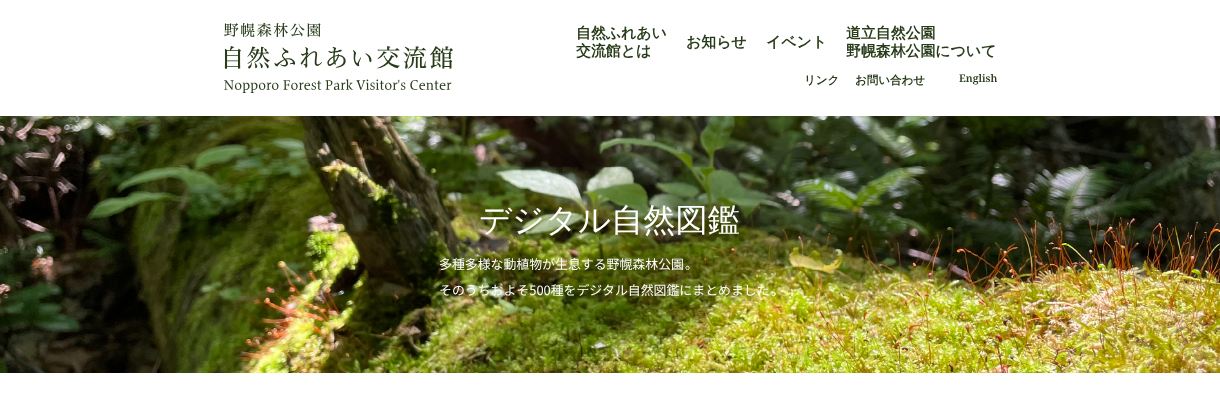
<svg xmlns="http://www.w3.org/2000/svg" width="1220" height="402">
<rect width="100%" height="100%" fill="#fff"/>
<image x="224" y="23" width="229" height="70" href="media/1.png"/>
<text x="576" y="38" style="font-family:WenQuanYi Zen Hei;font-size:14.9px;font-weight:bold;fill:#283c1a">自然ふれあい</text>
<text x="576" y="56" style="font-family:WenQuanYi Zen Hei;font-size:14.9px;font-weight:bold;fill:#283c1a">交流館とは</text>
<text x="686" y="47" style="font-family:WenQuanYi Zen Hei;font-size:14.9px;font-weight:bold;fill:#283c1a">お知らせ</text>
<text x="766" y="47" style="font-family:WenQuanYi Zen Hei;font-size:14.9px;font-weight:bold;fill:#283c1a">イベント</text>
<text x="846" y="38" style="font-family:WenQuanYi Zen Hei;font-size:14.9px;font-weight:bold;fill:#283c1a">道立自然公園</text>
<text x="846" y="56" style="font-family:WenQuanYi Zen Hei;font-size:14.9px;font-weight:bold;fill:#283c1a">野幌森林公園について</text>
<text x="804" y="84" style="font-family:WenQuanYi Zen Hei;font-size:11.5px;font-weight:bold;fill:#283c1a">リンク</text>
<text x="855" y="84" style="font-family:WenQuanYi Zen Hei;font-size:11.5px;font-weight:bold;fill:#283c1a">お問い合わせ</text>
<text x="959" y="82" style="font-family:Noto Serif;font-size:10.5px;font-weight:600;fill:#283c1a">English</text>
<image x="0" y="116" width="1220" height="257" href="media/2.png"/>
<text x="479" y="231" style="font-family:WenQuanYi Zen Hei;font-size:32.25px;font-weight:500;fill:#fff">デジタル自然図鑑</text>
<text x="439" y="269" style="font-family:Noto Sans JP;font-size:12.9px;fill:#fff">多種多様な動植物が生息する野幌森林公園</text>
<text x="685" y="269" style="font-family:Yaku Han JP;font-size:12.9px;fill:#fff">。</text>
<text x="439" y="295" style="font-family:Noto Sans JP;font-size:12.9px;fill:#fff">そのうちおよそ500種をデジタル自然図鑑にまとめました</text>
<text x="771" y="295" style="font-family:Yaku Han JP;font-size:12.9px;fill:#fff">。</text>
</svg>
